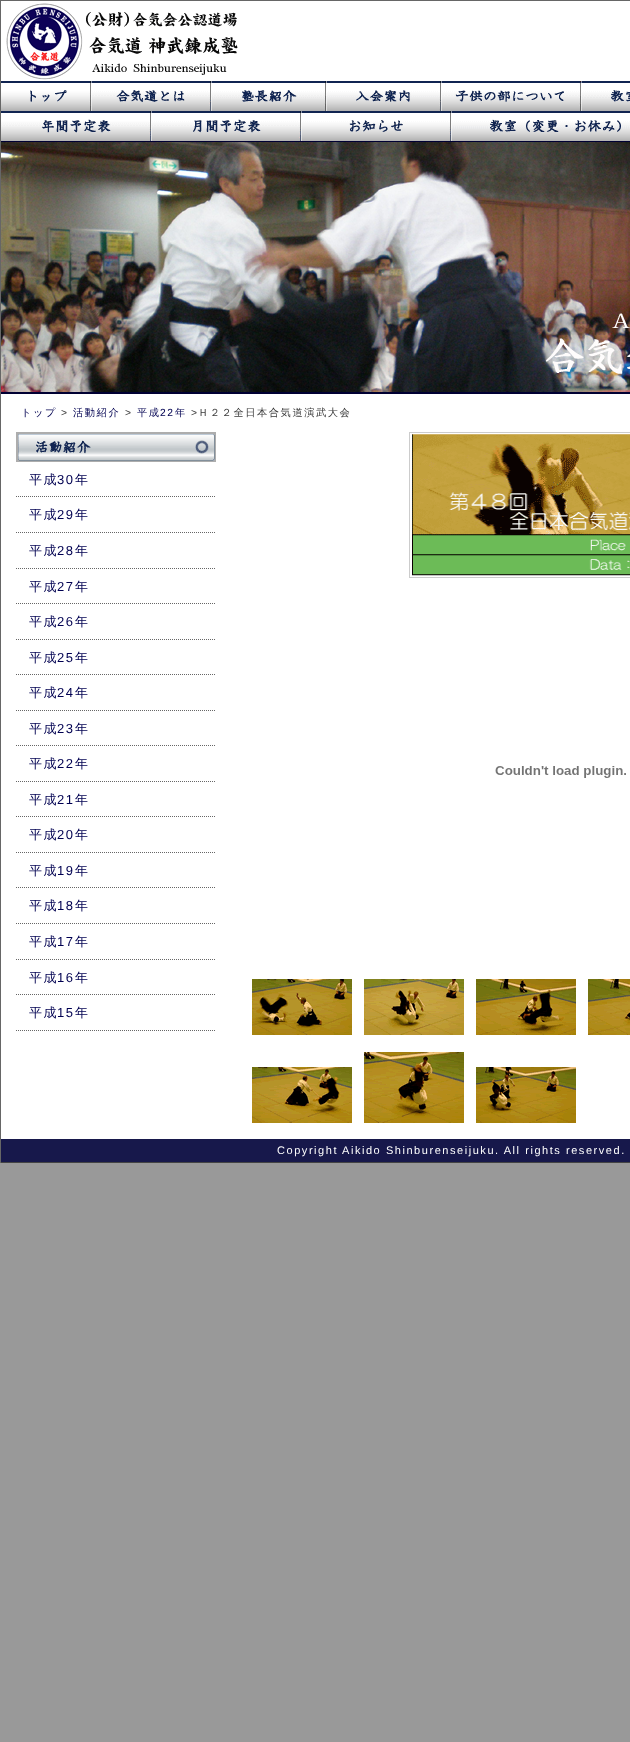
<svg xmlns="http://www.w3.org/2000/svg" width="630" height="1742">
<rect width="100%" height="100%" fill="#999"/>
<rect x="1" y="1" width="629" height="1138" fill="#fff"/>
<rect width="630" height="1" fill="#666"/>
<rect y="1162" width="630" height="1" fill="#444"/>
<rect width="1" height="1163" fill="#666"/>
<image x="6" y="3" width="232" height="77" href="media/1.png"/>
<image x="1" y="81" width="90" height="30" href="media/2.png"/>
<image x="91" y="81" width="120" height="30" href="media/3.png"/>
<image x="211" y="81" width="115" height="30" href="media/4.png"/>
<image x="326" y="81" width="115" height="30" href="media/5.png"/>
<image x="441" y="81" width="140" height="30" href="media/6.png"/>
<image x="581" y="81" width="49" height="30" href="media/7.png"/>
<image x="1" y="111" width="150" height="30" href="media/8.png"/>
<image x="151" y="111" width="150" height="30" href="media/9.png"/>
<image x="301" y="111" width="150" height="30" href="media/10.png"/>
<image x="451" y="111" width="179" height="30" href="media/11.png"/>
<image x="1" y="142" width="629" height="250" href="media/12.png"/>
<rect x="1" y="141" width="629" height="1" fill="#003"/>
<rect x="1" y="392" width="629" height="2" fill="#003"/>
<text x="21" y="416" style="font-family:WenQuanYi Zen Hei;font-size:10.25px;font-weight:500;letter-spacing:1.55px;fill:#000051">トップ</text>
<text x="61" y="416" style="font-family:Liberation Sans;font-size:10.25px;letter-spacing:1.55px;fill:#3a3a3a">&gt;</text>
<text x="73" y="416" style="font-family:WenQuanYi Zen Hei;font-size:10.25px;font-weight:500;letter-spacing:1.55px;fill:#000051">活動紹介</text>
<text x="125" y="416" style="font-family:Liberation Sans;font-size:10.25px;letter-spacing:1.55px;fill:#3a3a3a">&gt;</text>
<text x="137" y="416" style="font-family:WenQuanYi Zen Hei;font-size:10.25px;font-weight:500;letter-spacing:1.55px;fill:#000051">平成</text>
<text x="160" y="416" style="font-family:Liberation Sans;font-size:10.25px;letter-spacing:1.55px;fill:#000051">22</text>
<text x="175" y="416" style="font-family:WenQuanYi Zen Hei;font-size:10.25px;font-weight:500;letter-spacing:1.55px;fill:#000051">年</text>
<text x="191" y="416" style="font-family:Liberation Sans;font-size:10.25px;letter-spacing:1.55px;fill:#3a3a3a">&gt;</text>
<text x="198" y="416" style="font-family:WenQuanYi Zen Hei;font-size:10.25px;font-weight:500;letter-spacing:1.55px;fill:#3a3a3a">Ｈ２２全日本合気道演武大会</text>
<image x="16" y="432" width="200" height="30" href="media/13.png"/>
<path d="M16 496.5h200" fill="none" stroke="#666" stroke-dasharray="1 1"/>
<text x="29" y="484" style="font-family:WenQuanYi Zen Hei;font-size:13px;font-weight:500;letter-spacing:1.55px;fill:#000051">平成</text>
<text x="57" y="484" style="font-family:Liberation Sans;font-size:13px;letter-spacing:1.55px;fill:#000051">30</text>
<text x="75" y="484" style="font-family:WenQuanYi Zen Hei;font-size:13px;font-weight:500;letter-spacing:1.55px;fill:#000051">年</text>
<path d="M16 532.5h200" fill="none" stroke="#666" stroke-dasharray="1 1"/>
<text x="29" y="519" style="font-family:WenQuanYi Zen Hei;font-size:13px;font-weight:500;letter-spacing:1.55px;fill:#000051">平成</text>
<text x="57" y="519" style="font-family:Liberation Sans;font-size:13px;letter-spacing:1.55px;fill:#000051">29</text>
<text x="75" y="519" style="font-family:WenQuanYi Zen Hei;font-size:13px;font-weight:500;letter-spacing:1.55px;fill:#000051">年</text>
<path d="M16 568.5h200" fill="none" stroke="#666" stroke-dasharray="1 1"/>
<text x="29" y="555" style="font-family:WenQuanYi Zen Hei;font-size:13px;font-weight:500;letter-spacing:1.55px;fill:#000051">平成</text>
<text x="57" y="555" style="font-family:Liberation Sans;font-size:13px;letter-spacing:1.55px;fill:#000051">28</text>
<text x="75" y="555" style="font-family:WenQuanYi Zen Hei;font-size:13px;font-weight:500;letter-spacing:1.55px;fill:#000051">年</text>
<path d="M16 603.5h200" fill="none" stroke="#666" stroke-dasharray="1 1"/>
<text x="29" y="591" style="font-family:WenQuanYi Zen Hei;font-size:13px;font-weight:500;letter-spacing:1.55px;fill:#000051">平成</text>
<text x="57" y="591" style="font-family:Liberation Sans;font-size:13px;letter-spacing:1.55px;fill:#000051">27</text>
<text x="75" y="591" style="font-family:WenQuanYi Zen Hei;font-size:13px;font-weight:500;letter-spacing:1.55px;fill:#000051">年</text>
<path d="M16 639.5h200" fill="none" stroke="#666" stroke-dasharray="1 1"/>
<text x="29" y="626" style="font-family:WenQuanYi Zen Hei;font-size:13px;font-weight:500;letter-spacing:1.55px;fill:#000051">平成</text>
<text x="57" y="626" style="font-family:Liberation Sans;font-size:13px;letter-spacing:1.55px;fill:#000051">26</text>
<text x="75" y="626" style="font-family:WenQuanYi Zen Hei;font-size:13px;font-weight:500;letter-spacing:1.55px;fill:#000051">年</text>
<path d="M16 674.5h200" fill="none" stroke="#666" stroke-dasharray="1 1"/>
<text x="29" y="662" style="font-family:WenQuanYi Zen Hei;font-size:13px;font-weight:500;letter-spacing:1.55px;fill:#000051">平成</text>
<text x="57" y="662" style="font-family:Liberation Sans;font-size:13px;letter-spacing:1.55px;fill:#000051">25</text>
<text x="75" y="662" style="font-family:WenQuanYi Zen Hei;font-size:13px;font-weight:500;letter-spacing:1.55px;fill:#000051">年</text>
<path d="M16 710.5h200" fill="none" stroke="#666" stroke-dasharray="1 1"/>
<text x="29" y="697" style="font-family:WenQuanYi Zen Hei;font-size:13px;font-weight:500;letter-spacing:1.55px;fill:#000051">平成</text>
<text x="57" y="697" style="font-family:Liberation Sans;font-size:13px;letter-spacing:1.55px;fill:#000051">24</text>
<text x="75" y="697" style="font-family:WenQuanYi Zen Hei;font-size:13px;font-weight:500;letter-spacing:1.55px;fill:#000051">年</text>
<path d="M16 745.5h200" fill="none" stroke="#666" stroke-dasharray="1 1"/>
<text x="29" y="733" style="font-family:WenQuanYi Zen Hei;font-size:13px;font-weight:500;letter-spacing:1.55px;fill:#000051">平成</text>
<text x="57" y="733" style="font-family:Liberation Sans;font-size:13px;letter-spacing:1.55px;fill:#000051">23</text>
<text x="75" y="733" style="font-family:WenQuanYi Zen Hei;font-size:13px;font-weight:500;letter-spacing:1.55px;fill:#000051">年</text>
<path d="M16 781.5h200" fill="none" stroke="#666" stroke-dasharray="1 1"/>
<text x="29" y="768" style="font-family:WenQuanYi Zen Hei;font-size:13px;font-weight:500;letter-spacing:1.55px;fill:#000051">平成</text>
<text x="57" y="768" style="font-family:Liberation Sans;font-size:13px;letter-spacing:1.55px;fill:#000051">22</text>
<text x="75" y="768" style="font-family:WenQuanYi Zen Hei;font-size:13px;font-weight:500;letter-spacing:1.55px;fill:#000051">年</text>
<path d="M16 816.5h200" fill="none" stroke="#666" stroke-dasharray="1 1"/>
<text x="29" y="804" style="font-family:WenQuanYi Zen Hei;font-size:13px;font-weight:500;letter-spacing:1.55px;fill:#000051">平成</text>
<text x="57" y="804" style="font-family:Liberation Sans;font-size:13px;letter-spacing:1.55px;fill:#000051">21</text>
<text x="75" y="804" style="font-family:WenQuanYi Zen Hei;font-size:13px;font-weight:500;letter-spacing:1.55px;fill:#000051">年</text>
<path d="M16 852.5h200" fill="none" stroke="#666" stroke-dasharray="1 1"/>
<text x="29" y="839" style="font-family:WenQuanYi Zen Hei;font-size:13px;font-weight:500;letter-spacing:1.55px;fill:#000051">平成</text>
<text x="57" y="839" style="font-family:Liberation Sans;font-size:13px;letter-spacing:1.55px;fill:#000051">20</text>
<text x="75" y="839" style="font-family:WenQuanYi Zen Hei;font-size:13px;font-weight:500;letter-spacing:1.55px;fill:#000051">年</text>
<path d="M16 887.5h200" fill="none" stroke="#666" stroke-dasharray="1 1"/>
<text x="29" y="875" style="font-family:WenQuanYi Zen Hei;font-size:13px;font-weight:500;letter-spacing:1.55px;fill:#000051">平成</text>
<text x="57" y="875" style="font-family:Liberation Sans;font-size:13px;letter-spacing:1.55px;fill:#000051">19</text>
<text x="75" y="875" style="font-family:WenQuanYi Zen Hei;font-size:13px;font-weight:500;letter-spacing:1.55px;fill:#000051">年</text>
<path d="M16 923.5h200" fill="none" stroke="#666" stroke-dasharray="1 1"/>
<text x="29" y="910" style="font-family:WenQuanYi Zen Hei;font-size:13px;font-weight:500;letter-spacing:1.55px;fill:#000051">平成</text>
<text x="57" y="910" style="font-family:Liberation Sans;font-size:13px;letter-spacing:1.55px;fill:#000051">18</text>
<text x="75" y="910" style="font-family:WenQuanYi Zen Hei;font-size:13px;font-weight:500;letter-spacing:1.55px;fill:#000051">年</text>
<path d="M16 959.5h200" fill="none" stroke="#666" stroke-dasharray="1 1"/>
<text x="29" y="946" style="font-family:WenQuanYi Zen Hei;font-size:13px;font-weight:500;letter-spacing:1.55px;fill:#000051">平成</text>
<text x="57" y="946" style="font-family:Liberation Sans;font-size:13px;letter-spacing:1.55px;fill:#000051">17</text>
<text x="75" y="946" style="font-family:WenQuanYi Zen Hei;font-size:13px;font-weight:500;letter-spacing:1.55px;fill:#000051">年</text>
<path d="M16 994.5h200" fill="none" stroke="#666" stroke-dasharray="1 1"/>
<text x="29" y="982" style="font-family:WenQuanYi Zen Hei;font-size:13px;font-weight:500;letter-spacing:1.55px;fill:#000051">平成</text>
<text x="57" y="982" style="font-family:Liberation Sans;font-size:13px;letter-spacing:1.55px;fill:#000051">16</text>
<text x="75" y="982" style="font-family:WenQuanYi Zen Hei;font-size:13px;font-weight:500;letter-spacing:1.55px;fill:#000051">年</text>
<path d="M16 1030.5h200" fill="none" stroke="#666" stroke-dasharray="1 1"/>
<text x="29" y="1017" style="font-family:WenQuanYi Zen Hei;font-size:13px;font-weight:500;letter-spacing:1.55px;fill:#000051">平成</text>
<text x="57" y="1017" style="font-family:Liberation Sans;font-size:13px;letter-spacing:1.55px;fill:#000051">15</text>
<text x="75" y="1017" style="font-family:WenQuanYi Zen Hei;font-size:13px;font-weight:500;letter-spacing:1.55px;fill:#000051">年</text>
<rect x="409.5" y="432.5" width="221" height="145" fill="none" stroke="#ccc"/>
<image x="412" y="434" width="218" height="142" href="media/14.png"/>
<image x="495" y="766" width="131" height="12" href="media/15.png"/>
<image x="252" y="979" width="100" height="56" href="media/16.png"/>
<image x="364" y="979" width="100" height="56" href="media/17.png"/>
<image x="476" y="979" width="100" height="56" href="media/18.png"/>
<image x="588" y="979" width="42" height="56" href="media/19.png"/>
<image x="252" y="1067" width="100" height="56" href="media/20.png"/>
<image x="364" y="1052" width="100" height="71" href="media/21.png"/>
<image x="476" y="1067" width="100" height="56" href="media/22.png"/>
<rect x="1" y="1139" width="629" height="23" fill="#17184b"/>
<text x="277" y="1154" style="font-family:Liberation Sans;font-size:11px;letter-spacing:1.55px;fill:#fff">Copyright Aikido Shinburenseijuku. All rights reserved.</text>
</svg>
